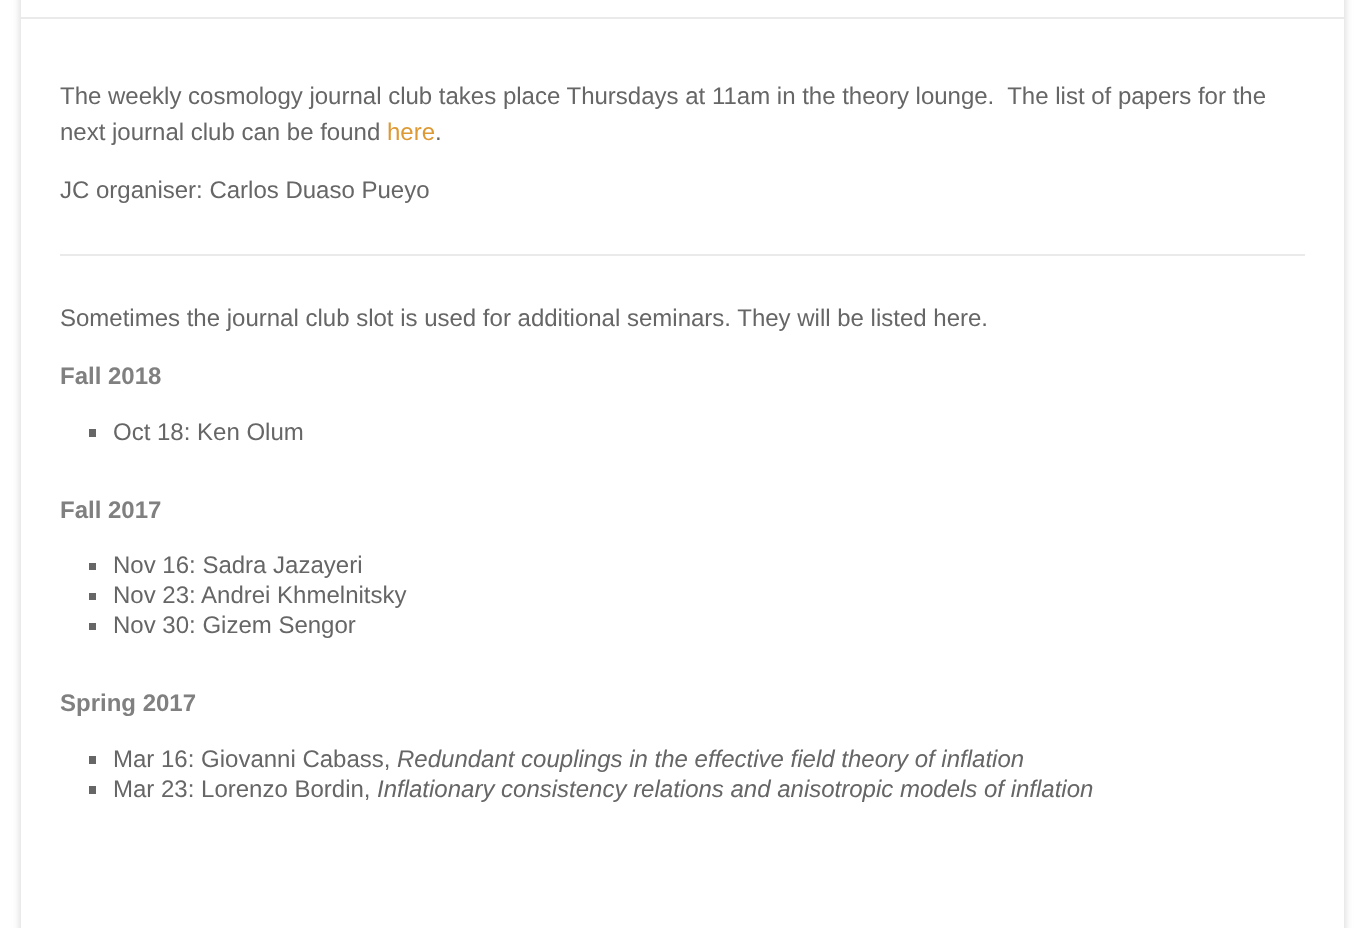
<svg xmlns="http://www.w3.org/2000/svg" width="1365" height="928">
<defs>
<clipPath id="clip1"><path d="M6 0h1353v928h-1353zm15-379h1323v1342h-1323z" clip-rule="evenodd"/></clipPath>
</defs>
<rect width="100%" height="100%" fill="#fff"/>
<g clip-path="url(#clip1)">
<rect x="21" y="-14" width="1323" height="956" fill="#6464644d" filter="blur(4.5px)"/>
</g>
<rect x="21" y="17" width="1323" height="2" fill="#eaeaea"/>
<text x="60" y="104" style="font-family:Liberation Sans;font-size:24px;fill:#666" xml:space="preserve">The weekly cosmology journal club takes place Thursdays at 11am in the theory lounge.  The list of papers for the</text>
<text x="60" y="140" style="font-family:Liberation Sans;font-size:24px;fill:#666">next journal club can be found</text>
<text x="387" y="140" style="font-family:Liberation Sans;font-size:24px;fill:#d93">here</text>
<text x="435" y="140" style="font-family:Liberation Sans;font-size:24px;fill:#666">.</text>
<text x="60" y="198" style="font-family:Liberation Sans;font-size:24px;fill:#666">JC organiser: Carlos Duaso Pueyo</text>
<rect x="60" y="254" width="1245" height="2" fill="#eaeaea"/>
<text x="60" y="326" style="font-family:Liberation Sans;font-size:24px;fill:#666">Sometimes the journal club slot is used for additional seminars. They will be listed here.</text>
<text x="60" y="384" style="font-family:Liberation Sans;font-size:24px;font-weight:bold;fill:#808080">Fall 2018</text>
<rect x="89" y="429" width="7" height="8" fill="#666"/>
<text x="113" y="440" style="font-family:Liberation Sans;font-size:24px;fill:#666">Oct 18: Ken Olum</text>
<text x="60" y="518" style="font-family:Liberation Sans;font-size:24px;font-weight:bold;fill:#808080">Fall 2017</text>
<rect x="89" y="563" width="7" height="7" fill="#666"/>
<text x="113" y="573" style="font-family:Liberation Sans;font-size:24px;fill:#666">Nov 16: Sadra Jazayeri</text>
<rect x="89" y="593" width="7" height="7" fill="#666"/>
<text x="113" y="603" style="font-family:Liberation Sans;font-size:24px;fill:#666">Nov 23: Andrei Khmelnitsky</text>
<rect x="89" y="623" width="7" height="7" fill="#666"/>
<text x="113" y="633" style="font-family:Liberation Sans;font-size:24px;fill:#666">Nov 30: Gizem Sengor</text>
<text x="60" y="711" style="font-family:Liberation Sans;font-size:24px;font-weight:bold;fill:#808080">Spring 2017</text>
<rect x="89" y="756" width="7" height="8" fill="#666"/>
<text x="113" y="767" style="font-family:Liberation Sans;font-size:24px;fill:#666">Mar 16: Giovanni Cabass,</text>
<text x="397" y="767" style="font-family:Liberation Sans;font-size:24px;font-style:italic;fill:#666">Redundant couplings in the effective field theory of inflation</text>
<rect x="89" y="786" width="7" height="8" fill="#666"/>
<text x="113" y="797" style="font-family:Liberation Sans;font-size:24px;fill:#666">Mar 23: Lorenzo Bordin,</text>
<text x="377" y="797" style="font-family:Liberation Sans;font-size:24px;font-style:italic;fill:#666">Inflationary consistency relations and anisotropic models of inflation</text>
</svg>
